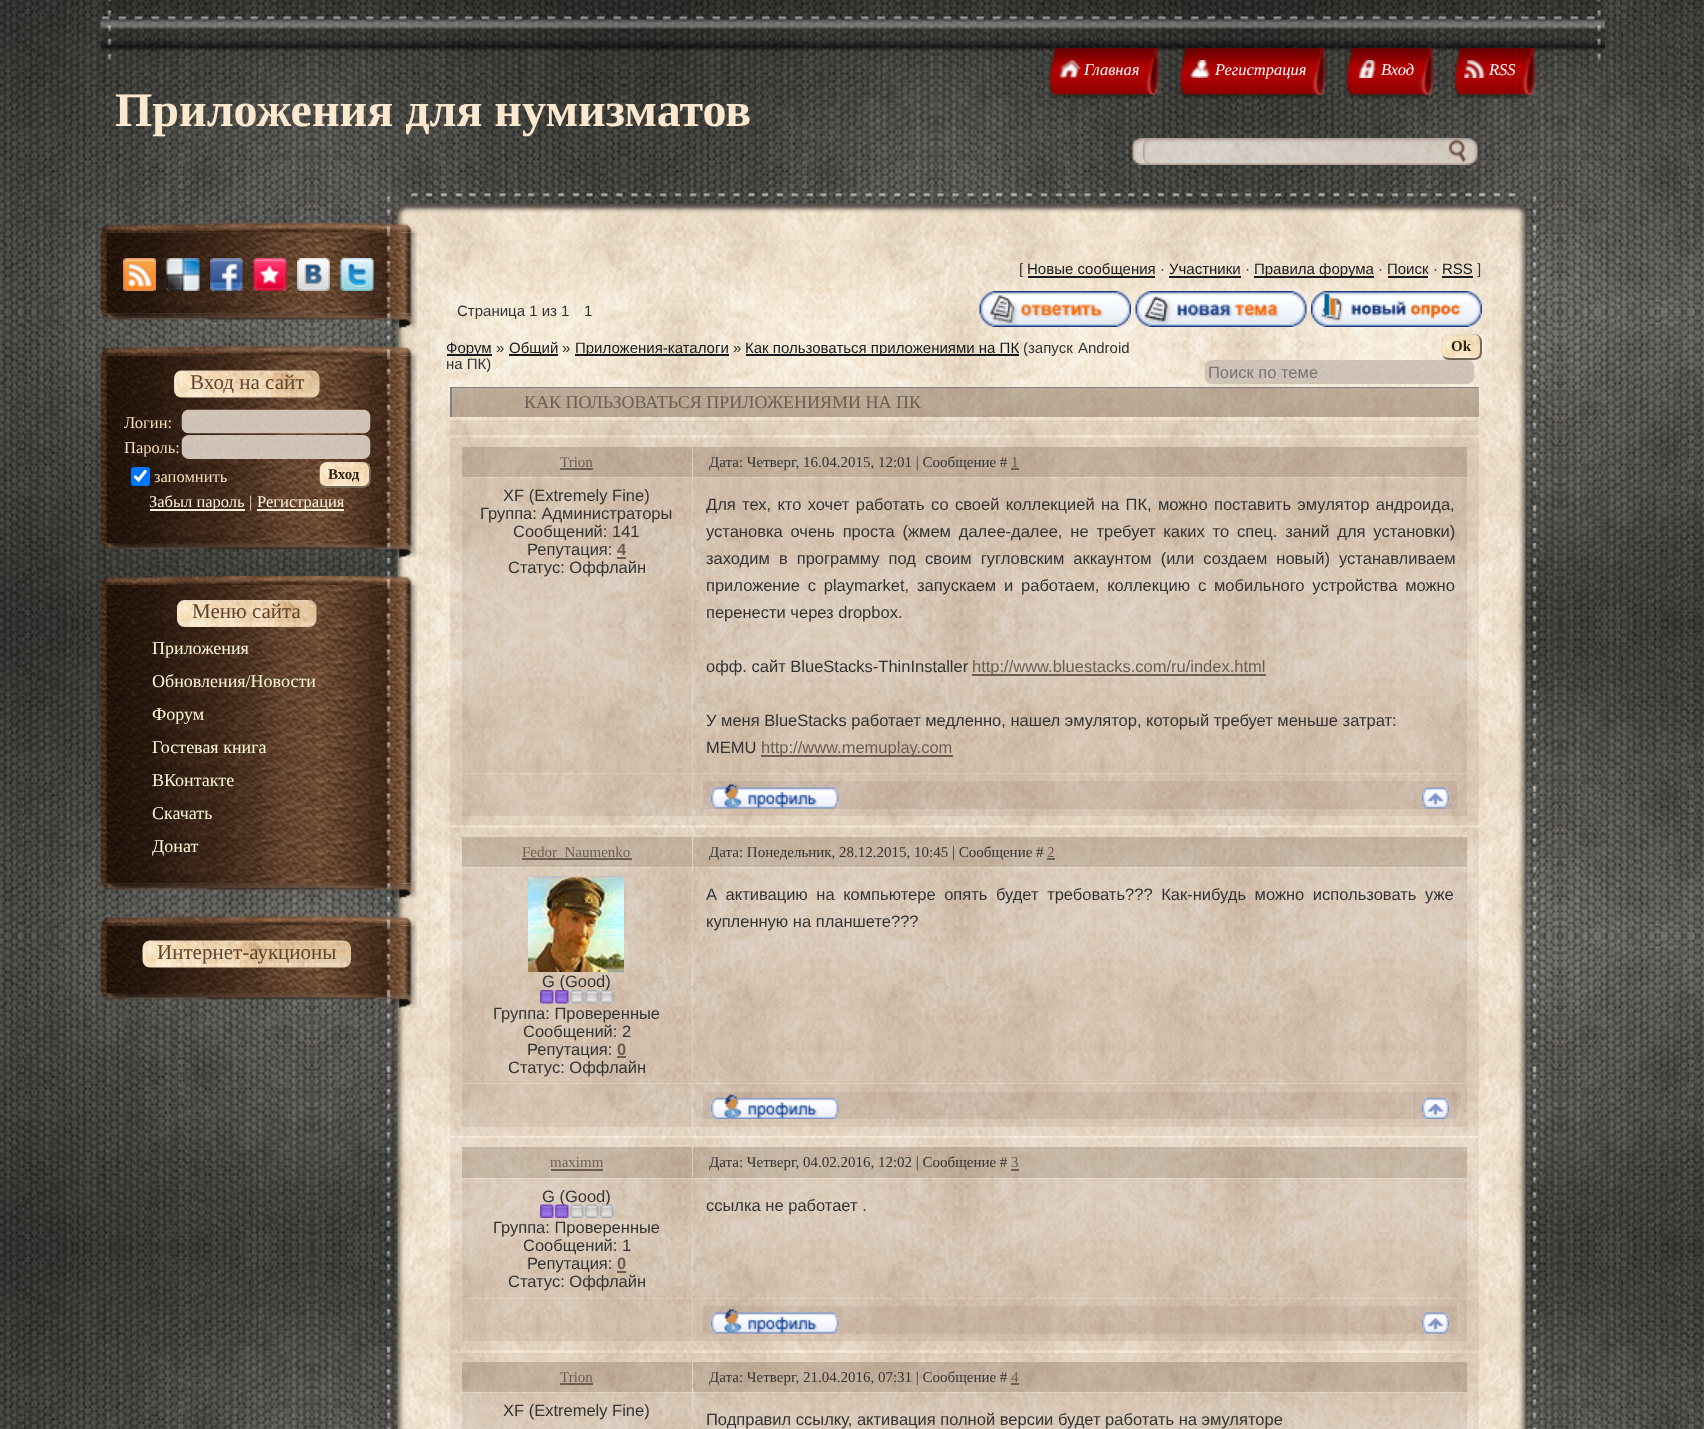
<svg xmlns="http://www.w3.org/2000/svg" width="1704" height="1429">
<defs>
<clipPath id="clip1"><rect x="450" y="387" width="1029" height="30"/></clipPath>
</defs>
<rect width="100%" height="100%" fill="#fff"/>
<image x="0" y="0" width="1704" height="1429" href="media/1.png"/>
<image x="100" y="0" width="1505" height="60" href="media/2.png"/>
<image x="1049" y="48" width="10" height="51" href="media/3.png"/>
<image x="1059" y="48" width="81" height="51" href="media/4.png"/>
<image x="1059" y="60" width="23" height="18" href="media/5.png"/>
<text x="1084" y="75" style="font-family:Liberation Serif;font-size:16.5px;font-style:italic;fill:#fff">Главная</text>
<image x="1140" y="48" width="20" height="51" href="media/6.png"/>
<image x="1179" y="48" width="11" height="51" href="media/7.png"/>
<image x="1189" y="48" width="118" height="51" href="media/8.png"/>
<image x="1189" y="60" width="22" height="18" href="media/9.png"/>
<text x="1215" y="75" style="font-family:Liberation Serif;font-size:16.5px;font-style:italic;fill:#fff">Регистрация</text>
<image x="1306" y="48" width="21" height="51" href="media/10.png"/>
<image x="1346" y="48" width="10" height="51" href="media/11.png"/>
<image x="1356" y="48" width="59" height="51" href="media/12.png"/>
<image x="1358" y="60" width="19" height="18" href="media/13.png"/>
<text x="1381" y="75" style="font-family:Liberation Serif;font-size:16.5px;font-style:italic;fill:#fff">Вход</text>
<image x="1414" y="48" width="21" height="51" href="media/14.png"/>
<image x="1454" y="48" width="10" height="51" href="media/15.png"/>
<image x="1464" y="48" width="53" height="51" href="media/16.png"/>
<image x="1464" y="60" width="22" height="18" href="media/17.png"/>
<text x="1489" y="75" style="font-family:Liberation Serif;font-size:16.5px;font-style:italic;fill:#fff">RSS</text>
<image x="1516" y="48" width="21" height="51" href="media/18.png"/>
<text x="115" y="126" style="font-family:Liberation Serif;font-size:48px;font-weight:bold;fill:#fbe8cf">Приложения для нумизматов</text>
<image x="1132" y="138" width="334" height="27" href="media/19.png"/>
<image x="1143" y="138" width="335" height="27" href="media/20.png"/>
<image x="386" y="193" width="1151" height="23" href="media/21.png"/>
<image x="386" y="216" width="1151" height="1213" href="media/22.png"/>
<image x="100" y="232" width="317" height="82" href="media/24.png"/>
<image x="100" y="223" width="317" height="10" href="media/23.png"/>
<image x="123" y="258" width="33" height="33" href="media/25.png"/>
<image x="166" y="258" width="34" height="33" href="media/26.png"/>
<image x="210" y="258" width="33" height="33" href="media/27.png"/>
<image x="253" y="258" width="34" height="33" href="media/28.png"/>
<image x="297" y="258" width="33" height="33" href="media/29.png"/>
<image x="340" y="258" width="34" height="33" href="media/30.png"/>
<image x="101" y="313" width="316" height="16" href="media/31.png"/>
<image x="100" y="355" width="317" height="188" href="media/33.png"/>
<image x="101" y="346" width="316" height="10" href="media/32.png"/>
<image x="174" y="370" width="146" height="28" href="media/34.png"/>
<text x="190" y="389" style="font-family:Liberation Serif;font-size:21px;fill:#5f422b">Вход на сайт</text>
<text x="124" y="428" style="font-family:Liberation Serif;font-size:16.5px;fill:#f7dfba">Логин:</text>
<image x="181" y="409" width="190" height="25" href="media/35.png"/>
<text x="124" y="453" style="font-family:Liberation Serif;font-size:16.5px;fill:#f7dfba">Пароль:</text>
<image x="181" y="435" width="190" height="24" href="media/36.png"/>
<rect x="131" y="467" width="19" height="19" rx="3" fill="#0075ff"/>
<path d="M134.5 476l4 4l7.5-9.5" fill="none" stroke="#fff" stroke-width="3.1"/>
<text x="154" y="482" style="font-family:Liberation Serif;font-size:16.5px;fill:#f7dfba">запомнить</text>
<image x="319" y="462" width="52" height="26" href="media/37.png"/>
<path d="M327 462h36c4 0 7 3 7 8v10c0 4-3 8-7 8h-36c-4 0-7-4-7-8v-10c0-5 3-8 7-8zm0 0h36c3 0 6 3 6 8v10c0 3-3 6-6 6h-36c-4 0-7-3-7-6v-10c0-5 3-8 7-8z" fill="#756859" fill-rule="evenodd"/>
<text x="328" y="479" style="font-family:Liberation Serif;font-size:15px;font-weight:bold;fill:#2d1f0b">Вход</text>
<rect x="150" y="509" width="95" height="2" fill="#fff1dd"/>
<text x="149" y="507" style="font-family:Liberation Serif;font-size:16.5px;fill:#fff1dd">Забыл пароль</text>
<text x="249" y="507" style="font-family:Liberation Serif;font-size:16.5px;fill:#f7dfba">|</text>
<rect x="257" y="509" width="87" height="2" fill="#fff1dd"/>
<text x="257" y="507" style="font-family:Liberation Serif;font-size:16.5px;fill:#fff1dd">Регистрация</text>
<image x="102" y="543" width="315" height="15" href="media/38.png"/>
<image x="100" y="576" width="317" height="9" href="media/39.png"/>
<image x="100" y="585" width="317" height="299" href="media/40.png"/>
<image x="177" y="600" width="140" height="27" href="media/41.png"/>
<text x="192" y="618" style="font-family:Liberation Serif;font-size:21px;fill:#5f422b">Меню сайта</text>
<text x="152" y="654" style="font-family:Liberation Serif;font-size:18px;fill:#fcfad7">Приложения</text>
<text x="152" y="687" style="font-family:Liberation Serif;font-size:18px;fill:#fcfad7">Обновления/Новости</text>
<text x="152" y="720" style="font-family:Liberation Serif;font-size:18px;fill:#fcfad7">Форум</text>
<text x="152" y="753" style="font-family:Liberation Serif;font-size:18px;fill:#fcfad7">Гостевая книга</text>
<text x="152" y="786" style="font-family:Liberation Serif;font-size:18px;fill:#fcfad7">ВКонтакте</text>
<text x="152" y="819" style="font-family:Liberation Serif;font-size:18px;fill:#fcfad7">Скачать</text>
<text x="152" y="852" style="font-family:Liberation Serif;font-size:18px;fill:#fcfad7">Донат</text>
<image x="102" y="883" width="315" height="16" href="media/42.png"/>
<image x="100" y="925" width="317" height="68" href="media/44.png"/>
<image x="100" y="916" width="317" height="10" href="media/43.png"/>
<image x="142" y="940" width="209" height="28" href="media/45.png"/>
<text x="157" y="959" style="font-family:Liberation Serif;font-size:21px;fill:#5f422b">Интернет-аукционы</text>
<image x="101" y="993" width="316" height="15" href="media/46.png"/>
<text x="1019" y="274" style="font-family:Liberation Sans;font-size:15px;fill:#333">[</text>
<rect x="1028" y="276" width="127" height="2" fill="#18191b"/>
<text x="1027" y="274" style="font-family:Liberation Sans;font-size:15px;fill:#18191b">Новые сообщения</text>
<text x="1160" y="274" style="font-family:Liberation Sans;font-size:15px;fill:#333">·</text>
<text x="1169" y="274" style="font-family:Liberation Sans;font-size:15px;fill:#18191b">Участники</text>
<rect x="1169" y="276" width="72" height="2" fill="#18191b"/>
<text x="1245" y="274" style="font-family:Liberation Sans;font-size:15px;fill:#333">·</text>
<rect x="1254" y="276" width="120" height="2" fill="#18191b"/>
<text x="1254" y="274" style="font-family:Liberation Sans;font-size:15px;fill:#18191b">Правила форума</text>
<text x="1378" y="274" style="font-family:Liberation Sans;font-size:15px;fill:#333">·</text>
<text x="1387" y="274" style="font-family:Liberation Sans;font-size:15px;fill:#18191b">Поиск</text>
<rect x="1388" y="276" width="40" height="2" fill="#18191b"/>
<text x="1433" y="274" style="font-family:Liberation Sans;font-size:15px;fill:#333">·</text>
<text x="1442" y="274" style="font-family:Liberation Sans;font-size:15px;fill:#18191b">RSS</text>
<rect x="1442" y="276" width="31" height="2" fill="#18191b"/>
<text x="1477" y="274" style="font-family:Liberation Sans;font-size:15px;fill:#333">]</text>
<text x="457" y="316" style="font-family:Liberation Sans;font-size:15px;fill:#333">Страница 1 из 1</text>
<text x="584" y="316" style="font-family:Liberation Sans;font-size:15px;fill:#333">1</text>
<image x="979" y="291" width="152" height="36" href="media/47.png"/>
<image x="1135" y="291" width="172" height="36" href="media/48.png"/>
<image x="1311" y="291" width="171" height="36" href="media/49.png"/>
<rect x="447" y="354" width="45" height="2" fill="#18191b"/>
<text x="446" y="353" style="font-family:Liberation Sans;font-size:15px;fill:#18191b">Форум</text>
<text x="496" y="353" style="font-family:Liberation Sans;font-size:15px;fill:#333">»</text>
<rect x="509" y="354" width="49" height="2" fill="#18191b"/>
<text x="509" y="353" style="font-family:Liberation Sans;font-size:15px;fill:#18191b">Общий</text>
<text x="562" y="353" style="font-family:Liberation Sans;font-size:15px;fill:#333">»</text>
<rect x="575" y="354" width="154" height="2" fill="#18191b"/>
<text x="575" y="353" style="font-family:Liberation Sans;font-size:15px;fill:#18191b">Приложения-каталоги</text>
<text x="733" y="353" style="font-family:Liberation Sans;font-size:15px;fill:#333">»</text>
<rect x="746" y="354" width="273" height="2" fill="#18191b"/>
<text x="745" y="353" style="font-family:Liberation Sans;font-size:15px;fill:#18191b">Как пользоваться приложениями на ПК</text>
<text x="1023" y="353" word-spacing="1" style="font-family:Liberation Sans;font-size:15px;fill:#333">(запуск Android</text>
<text x="446" y="369" style="font-family:Liberation Sans;font-size:15px;fill:#333">на ПК)</text>
<image x="1441" y="334" width="41" height="26" href="media/50.png"/>
<path d="M1449 334h25c5 0 8 4 8 8v10c0 5-3 8-8 8h-25c-4 0-7-3-7-8v-10c0-4 3-8 7-8zm0 0h17c13 0 14 0 14 13c0 5 1 11-6 11h-21c-13 0-11-3-11-14c0-5 2-10 7-10z" fill="#756859" fill-rule="evenodd"/>
<text x="1451" y="351" style="font-family:Liberation Serif;font-size:15px;font-weight:bold;fill:#2d1f0b">Ok</text>
<image x="1204" y="360" width="271" height="24" href="media/51.png"/>
<text x="1208" y="378" style="font-family:Liberation Sans;font-size:16.5px;fill:#757575">Поиск по теме</text>
<rect x="452" y="388" width="1027" height="29" fill="#61473261"/>
<g clip-path="url(#clip1)">
<path d="M302 238h1326v328h-1326zm150 150h1028v30h-1028z" fill="#807e7e" fill-rule="evenodd"/>
</g>
<text x="524" y="408" style="font-family:Liberation Serif;font-size:18px;fill:#6c5d52">КАК ПОЛЬЗОВАТЬСЯ ПРИЛОЖЕНИЯМИ НА ПК</text>
<rect x="450" y="420" width="1029" height="15" fill="#64433717"/>
<rect x="450" y="438" width="1029" height="387" fill="#64433717"/>
<rect x="462" y="447" width="230" height="30" fill="#6047323d"/>
<text x="560" y="467" style="font-family:Liberation Serif;font-size:15px;fill:#6c5d52">Trion</text>
<rect x="560" y="468" width="33" height="2" fill="#6c5d52"/>
<rect x="693" y="447" width="774" height="30" fill="#6047323d"/>
<text x="709" y="467" style="font-family:Liberation Serif;font-size:15px;fill:#333">Дата: Четверг, 16.04.2015, 12:01 | Сообщение #</text>
<text x="1011" y="467" style="font-family:Liberation Serif;font-size:15px;fill:#6c5d52">1</text>
<rect x="1011" y="468" width="8" height="2" fill="#6c5d52"/>
<rect x="462" y="478" width="230" height="295" fill="#64433717"/>
<text x="503" y="501" style="font-family:Liberation Sans;font-size:16.5px;fill:#333">XF (Extremely Fine)</text>
<text x="480" y="519" style="font-family:Liberation Sans;font-size:16.5px;fill:#333">Группа: Администраторы</text>
<text x="513" y="537" style="font-family:Liberation Sans;font-size:16.5px;fill:#333">Сообщений: 141</text>
<text x="527" y="555" style="font-family:Liberation Sans;font-size:16.5px;fill:#333">Репутация:</text>
<text x="617" y="555" style="font-family:Liberation Sans;font-size:16.5px;font-weight:bold;fill:#6c5d52">4</text>
<rect x="617" y="557" width="9" height="2" fill="#6c5d52"/>
<text x="508" y="573" style="font-family:Liberation Sans;font-size:16.5px;fill:#333">Статус: Оффлайн</text>
<rect x="693" y="478" width="774" height="295" fill="#64433717"/>
<text x="706" y="510" word-spacing="1.75" style="font-family:Liberation Sans;font-size:16.5px;fill:#333">Для тех, кто хочет работать со своей коллекцией на ПК, можно поставить эмулятор андроида,</text>
<text x="706" y="537" word-spacing="3.25" style="font-family:Liberation Sans;font-size:16.5px;fill:#333">установка очень проста (жмем далее-далее, не требует каких то спец. заний для установки)</text>
<text x="706" y="564" word-spacing="4.5" style="font-family:Liberation Sans;font-size:16.5px;fill:#333">заходим в программу под своим гугловским аккаунтом (или создаем новый) устанавливаем</text>
<text x="706" y="591" word-spacing="3.25" style="font-family:Liberation Sans;font-size:16.5px;fill:#333">приложение с playmarket, запускаем и работаем, коллекцию с мобильного устройства можно</text>
<text x="706" y="618" style="font-family:Liberation Sans;font-size:16.5px;fill:#333">перенести через dropbox.</text>
<text x="706" y="672" style="font-family:Liberation Sans;font-size:16.5px;fill:#333">офф. сайт BlueStacks-ThinInstaller</text>
<rect x="972" y="674" width="294" height="2" fill="#6c5d52"/>
<text x="972" y="672" style="font-family:Liberation Sans;font-size:16.5px;fill:#6c5d52">http://www.bluestacks.com/ru/index.html</text>
<text x="706" y="726" style="font-family:Liberation Sans;font-size:16.5px;fill:#333">У меня BlueStacks работает медленно, нашел эмулятор, который требует меньше затрат:</text>
<text x="706" y="753" style="font-family:Liberation Sans;font-size:16.5px;fill:#333">MEMU</text>
<rect x="761" y="755" width="192" height="2" fill="#6c5d52"/>
<text x="761" y="753" style="font-family:Liberation Sans;font-size:16.5px;fill:#6c5d52">http://www.memuplay.com</text>
<rect x="462" y="774" width="230" height="42" fill="#64433717"/>
<rect x="693" y="774" width="774" height="42" fill="#64433717"/>
<rect x="703" y="781" width="643" height="28" fill="#64433717"/>
<image x="711" y="784" width="128" height="25" href="media/52.png"/>
<rect x="1345" y="781" width="70" height="28" fill="#64433717"/>
<rect x="1414" y="781" width="43" height="28" fill="#64433717"/>
<image x="1422" y="787" width="27" height="22" href="media/53.png"/>
<rect x="450" y="828" width="1029" height="308" fill="#64433717"/>
<rect x="462" y="837" width="230" height="30" fill="#6047323d"/>
<rect x="522" y="858" width="110" height="2" fill="#6c5d52"/>
<text x="522" y="857" style="font-family:Liberation Serif;font-size:15px;fill:#6c5d52">Fedor_Naumenko</text>
<rect x="693" y="837" width="774" height="30" fill="#6047323d"/>
<text x="709" y="857" style="font-family:Liberation Serif;font-size:15px;fill:#333">Дата: Понедельник, 28.12.2015, 10:45 | Сообщение #</text>
<text x="1047" y="857" style="font-family:Liberation Serif;font-size:15px;fill:#6c5d52">2</text>
<rect x="1047" y="858" width="8" height="2" fill="#6c5d52"/>
<rect x="693" y="868" width="774" height="215" fill="#64433717"/>
<text x="706" y="900" word-spacing="4" style="font-family:Liberation Sans;font-size:16.5px;fill:#333">А активацию на компьютере опять будет требовать??? Как-нибудь можно использовать уже</text>
<text x="706" y="927" style="font-family:Liberation Sans;font-size:16.5px;fill:#333">купленную на планшете???</text>
<rect x="462" y="868" width="230" height="215" fill="#64433717"/>
<image x="528" y="876" width="96" height="96" href="media/54.png"/>
<text x="542" y="987" style="font-family:Liberation Sans;font-size:16.5px;fill:#333">G (Good)</text>
<image x="540" y="990" width="74" height="14" href="media/55.png"/>
<text x="493" y="1019" style="font-family:Liberation Sans;font-size:16.5px;fill:#333">Группа: Проверенные</text>
<text x="523" y="1037" style="font-family:Liberation Sans;font-size:16.5px;fill:#333">Сообщений: 2</text>
<text x="527" y="1055" style="font-family:Liberation Sans;font-size:16.5px;fill:#333">Репутация:</text>
<text x="617" y="1055" style="font-family:Liberation Sans;font-size:16.5px;font-weight:bold;fill:#6c5d52">0</text>
<rect x="617" y="1056" width="9" height="2" fill="#6c5d52"/>
<text x="508" y="1073" style="font-family:Liberation Sans;font-size:16.5px;fill:#333">Статус: Оффлайн</text>
<rect x="462" y="1084" width="230" height="43" fill="#64433717"/>
<rect x="693" y="1084" width="774" height="43" fill="#64433717"/>
<rect x="703" y="1092" width="643" height="27" fill="#64433717"/>
<image x="711" y="1094" width="128" height="25" href="media/56.png"/>
<rect x="1345" y="1092" width="70" height="27" fill="#64433717"/>
<rect x="1414" y="1092" width="43" height="27" fill="#64433717"/>
<image x="1422" y="1097" width="27" height="22" href="media/57.png"/>
<rect x="450" y="1138" width="1029" height="212" fill="#64433717"/>
<rect x="462" y="1147" width="230" height="31" fill="#6047323d"/>
<text x="550" y="1167" style="font-family:Liberation Serif;font-size:15px;fill:#6c5d52">maximm</text>
<rect x="551" y="1169" width="52" height="2" fill="#6c5d52"/>
<rect x="693" y="1147" width="774" height="31" fill="#6047323d"/>
<text x="709" y="1167" style="font-family:Liberation Serif;font-size:15px;fill:#333">Дата: Четверг, 04.02.2016, 12:02 | Сообщение #</text>
<text x="1011" y="1167" style="font-family:Liberation Serif;font-size:15px;fill:#6c5d52">3</text>
<rect x="1011" y="1169" width="8" height="2" fill="#6c5d52"/>
<rect x="462" y="1179" width="230" height="119" fill="#64433717"/>
<text x="542" y="1202" style="font-family:Liberation Sans;font-size:16.5px;fill:#333">G (Good)</text>
<image x="540" y="1204" width="74" height="14" href="media/58.png"/>
<text x="493" y="1233" style="font-family:Liberation Sans;font-size:16.5px;fill:#333">Группа: Проверенные</text>
<text x="523" y="1251" style="font-family:Liberation Sans;font-size:16.5px;fill:#333">Сообщений: 1</text>
<text x="527" y="1269" style="font-family:Liberation Sans;font-size:16.5px;fill:#333">Репутация:</text>
<text x="617" y="1269" style="font-family:Liberation Sans;font-size:16.5px;font-weight:bold;fill:#6c5d52">0</text>
<rect x="617" y="1271" width="9" height="2" fill="#6c5d52"/>
<text x="508" y="1287" style="font-family:Liberation Sans;font-size:16.5px;fill:#333">Статус: Оффлайн</text>
<rect x="693" y="1179" width="774" height="119" fill="#64433717"/>
<text x="706" y="1211" style="font-family:Liberation Sans;font-size:16.5px;fill:#333">ссылка не работает .</text>
<rect x="462" y="1299" width="230" height="42" fill="#64433717"/>
<rect x="693" y="1299" width="774" height="42" fill="#64433717"/>
<rect x="703" y="1306" width="643" height="28" fill="#64433717"/>
<image x="711" y="1309" width="128" height="25" href="media/59.png"/>
<rect x="1345" y="1306" width="70" height="28" fill="#64433717"/>
<rect x="1414" y="1306" width="43" height="28" fill="#64433717"/>
<image x="1422" y="1312" width="27" height="22" href="media/60.png"/>
<rect x="450" y="1353" width="1029" height="76" fill="#64433717"/>
<rect x="462" y="1362" width="230" height="30" fill="#6047323d"/>
<text x="560" y="1382" style="font-family:Liberation Serif;font-size:15px;fill:#6c5d52">Trion</text>
<rect x="560" y="1383" width="33" height="2" fill="#6c5d52"/>
<rect x="693" y="1362" width="774" height="30" fill="#6047323d"/>
<text x="709" y="1382" style="font-family:Liberation Serif;font-size:15px;fill:#333">Дата: Четверг, 21.04.2016, 07:31 | Сообщение #</text>
<text x="1011" y="1382" style="font-family:Liberation Serif;font-size:15px;fill:#6c5d52">4</text>
<rect x="1011" y="1383" width="8" height="2" fill="#6c5d52"/>
<rect x="462" y="1393" width="230" height="36" fill="#64433717"/>
<text x="503" y="1416" style="font-family:Liberation Sans;font-size:16.5px;fill:#333">XF (Extremely Fine)</text>
<rect x="693" y="1393" width="774" height="36" fill="#64433717"/>
<text x="706" y="1425" style="font-family:Liberation Sans;font-size:16.5px;fill:#333">Подправил ссылку, активация полной версии будет работать на эмуляторе</text>
</svg>
